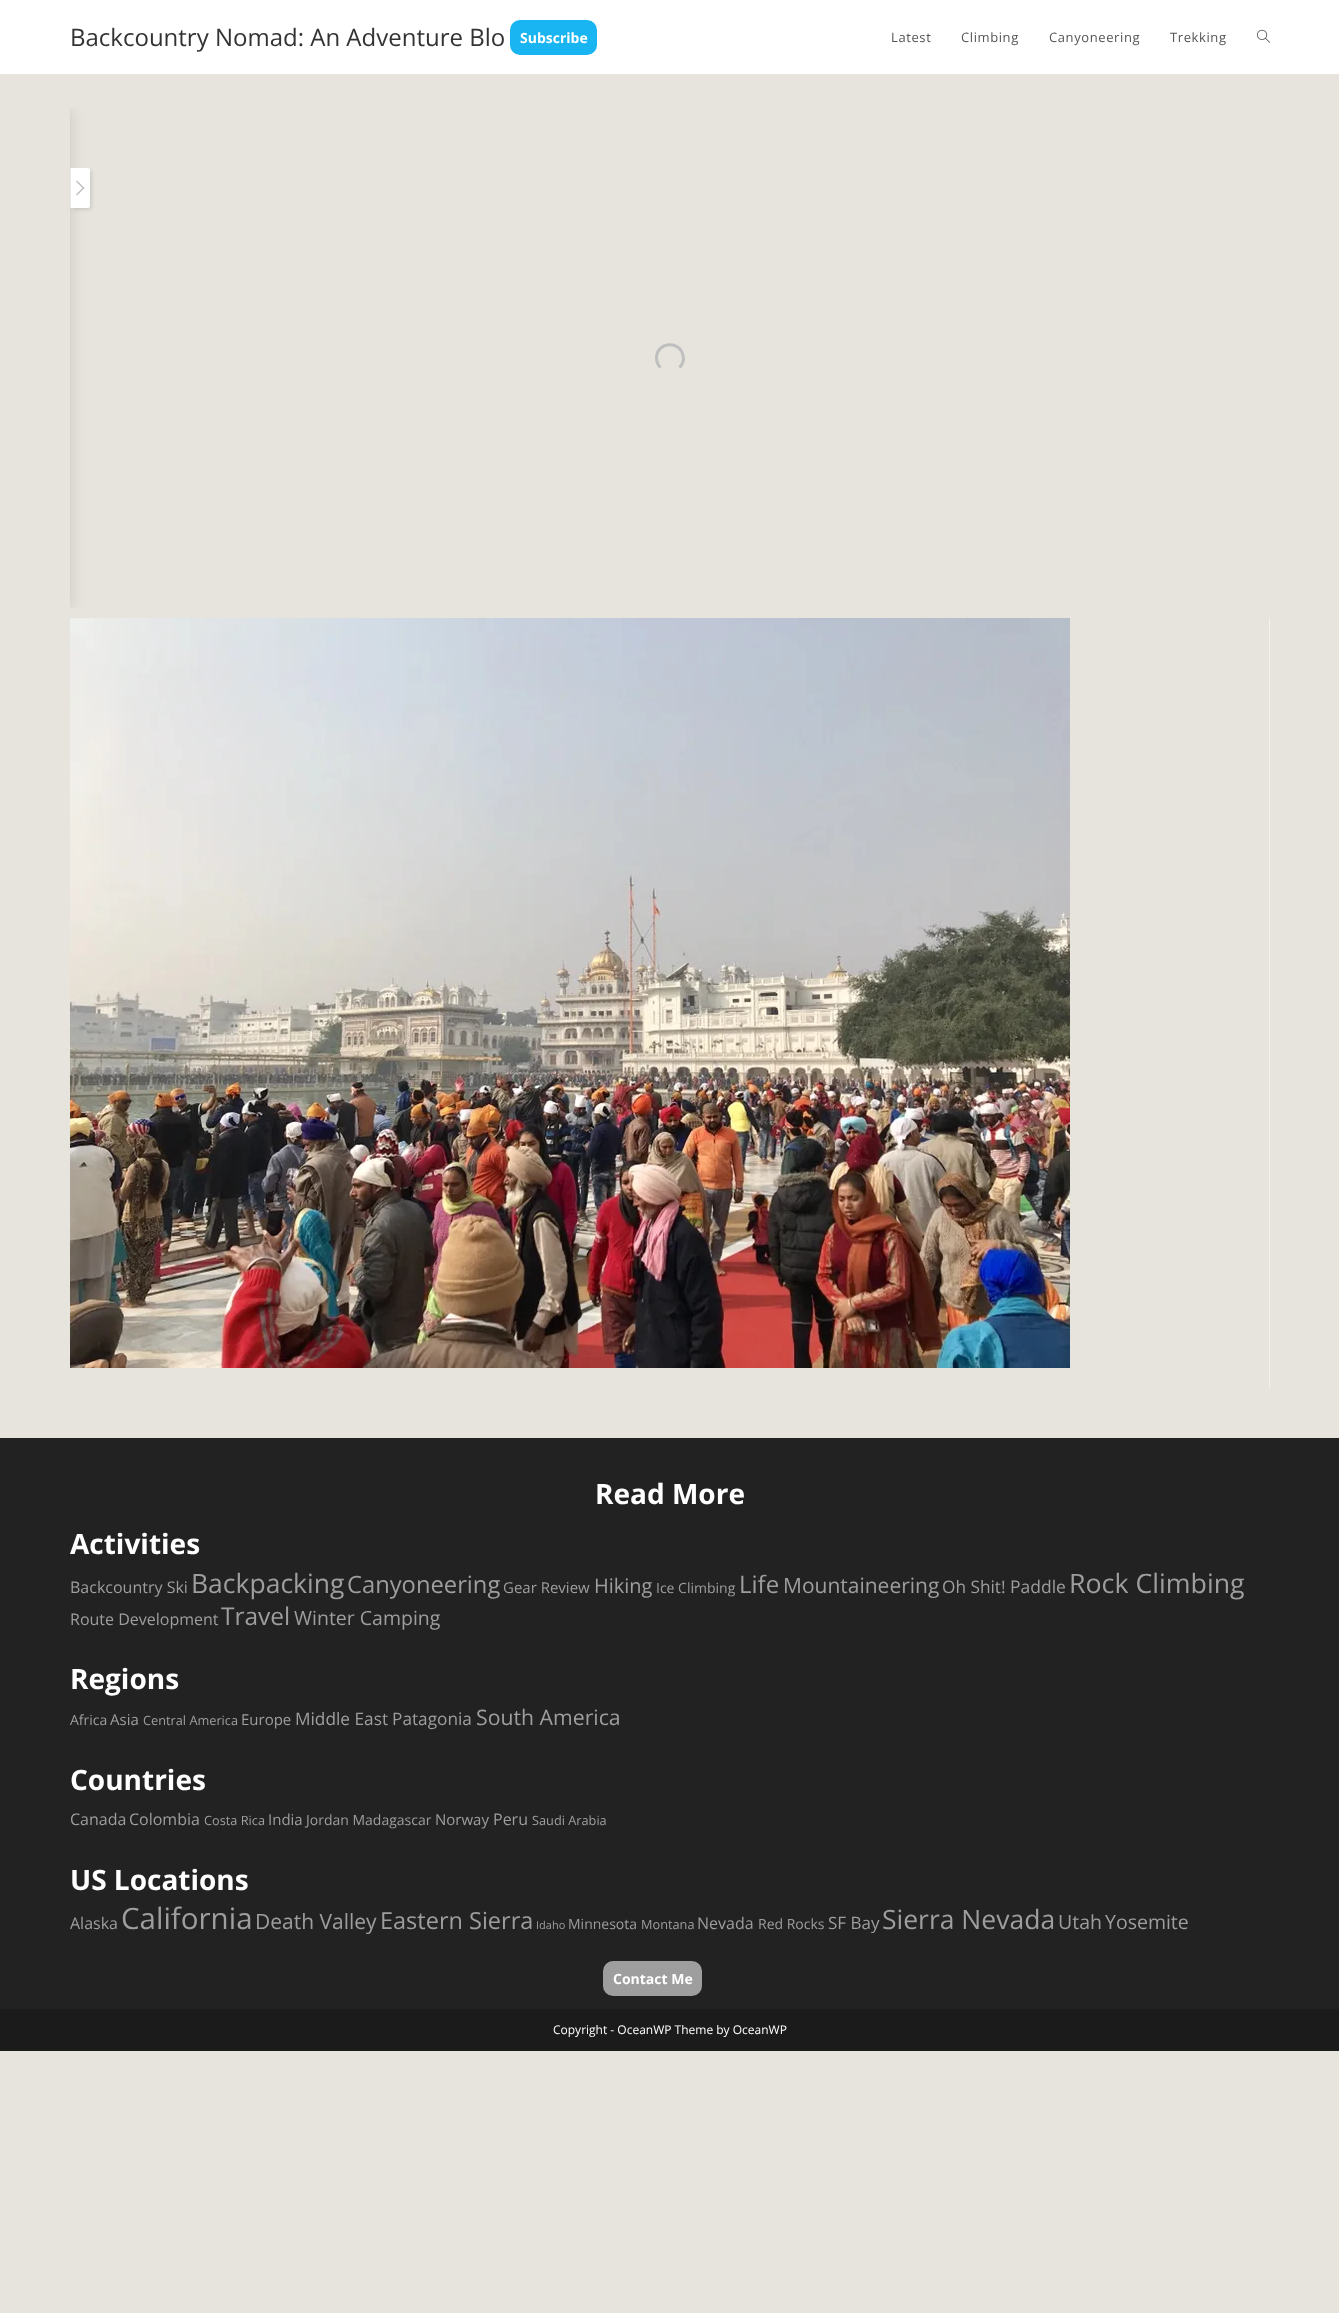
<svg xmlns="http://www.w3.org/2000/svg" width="1339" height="2313">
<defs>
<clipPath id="clip1"><rect x="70" y="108" width="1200" height="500"/></clipPath>
</defs>
<rect width="100%" height="100%" fill="#e6e4dd"/>
<rect width="1339" height="74" fill="#fff"/>
<text x="70" y="46" style="font-family:Open Sans;font-size:24px;fill:#333">Backcountry Nomad: An Adventure Blo</text>
<rect x="510" y="20" width="87" height="35" rx="10" fill="#19b4f2"/>
<text x="520" y="43" style="font-family:Open Sans;font-size:14px;font-weight:bold;fill:#fff">Subscribe</text>
<text x="891" y="42" style="font-family:Open Sans;font-size:13px;letter-spacing:0.6px;fill:#555">Latest</text>
<text x="961" y="42" style="font-family:Open Sans;font-size:13px;letter-spacing:0.6px;fill:#555">Climbing</text>
<text x="1049" y="42" style="font-family:Open Sans;font-size:13px;letter-spacing:0.6px;fill:#555">Canyoneering</text>
<text x="1170" y="42" style="font-family:Open Sans;font-size:13px;letter-spacing:0.6px;fill:#555">Trekking</text>
<image x="1257" y="29" width="13" height="14" href="media/1.png"/>
<image x="70" y="618" width="1000" height="750" href="media/2.png"/>
<g clip-path="url(#clip1)">
<rect x="-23" y="110" width="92" height="498" fill="#00000026" filter="blur(7.5px)"/>
</g>
<rect x="73" y="171" width="18" height="38" rx="1" fill="#00000026" filter="blur(2px)"/>
<path d="M70 168h18c1 0 2 1 2 2v36c0 1-1 2-2 2h-18z" fill="#fff"/>
<rect x="70" y="168" width="1" height="40" fill="#e8e8e8"/>
<path d="M77 180.5l7.5 7.5l-1 1l-7.5-7.5z" fill="#bfbfbf"/>
<path d="M83.5 187l1 1l-7.5 7.5l-1-1z" fill="#bfbfbf"/>
<path d="M660.5 367.5c-2.5-2.5-4-6-4-9.5c0-16 23.5-18.5 26.5-2.5c1 4-.5 9-3.5 12" fill="none" stroke="#bfbfbf" stroke-width="3"/>
<rect x="1269" y="618" width="1" height="770" fill="#f1f1f1"/>
<rect y="1438" width="1339" height="571" fill="#222"/>
<text x="595" y="1504" style="font-family:Open Sans;font-size:28px;font-weight:bold;fill:#fff">Read More</text>
<text x="70" y="1554" style="font-family:Open Sans;font-size:28px;font-weight:bold;fill:#fff">Activities</text>
<text x="70" y="1593" style="font-family:Open Sans;font-size:16px;fill:#9e9e9e">Backcountry Ski</text>
<text x="191" y="1593" style="font-family:Open Sans;font-size:26.5px;fill:#9e9e9e">Backpacking</text>
<text x="347" y="1593" style="font-family:Open Sans;font-size:23.75px;fill:#9e9e9e">Canyoneering</text>
<text x="503" y="1593" style="font-family:Open Sans;font-size:15px;fill:#9e9e9e">Gear Review</text>
<text x="594" y="1593" style="font-family:Open Sans;font-size:20px;fill:#9e9e9e">Hiking</text>
<text x="656" y="1593" style="font-family:Open Sans;font-size:14px;fill:#9e9e9e">Ice Climbing</text>
<text x="739" y="1593" style="font-family:Open Sans;font-size:24px;fill:#9e9e9e">Life</text>
<text x="783" y="1593" style="font-family:Open Sans;font-size:21px;fill:#9e9e9e">Mountaineering</text>
<text x="942" y="1593" style="font-family:Open Sans;font-size:17.25px;fill:#9e9e9e">Oh Shit!</text>
<text x="1010" y="1593" style="font-family:Open Sans;font-size:17.5px;fill:#9e9e9e">Paddle</text>
<text x="1069" y="1593" style="font-family:Open Sans;font-size:26.75px;fill:#9e9e9e">Rock Climbing</text>
<text x="70" y="1625" style="font-family:Open Sans;font-size:16px;fill:#9e9e9e">Route Development</text>
<text x="221" y="1625" style="font-family:Open Sans;font-size:24.5px;fill:#9e9e9e">Travel</text>
<text x="294" y="1625" style="font-family:Open Sans;font-size:19.5px;fill:#9e9e9e">Winter Camping</text>
<text x="70" y="1689" style="font-family:Open Sans;font-size:28px;font-weight:bold;fill:#fff">Regions</text>
<text x="70" y="1725" style="font-family:Open Sans;font-size:14px;fill:#9e9e9e">Africa</text>
<text x="110" y="1725" style="font-family:Open Sans;font-size:15px;fill:#9e9e9e">Asia</text>
<text x="143" y="1725" style="font-family:Open Sans;font-size:12.75px;fill:#9e9e9e">Central America</text>
<text x="241" y="1725" style="font-family:Open Sans;font-size:15px;fill:#9e9e9e">Europe</text>
<text x="295" y="1725" style="font-family:Open Sans;font-size:17.25px;fill:#9e9e9e">Middle East</text>
<text x="392" y="1725" style="font-family:Open Sans;font-size:17.25px;fill:#9e9e9e">Patagonia</text>
<text x="476" y="1725" style="font-family:Open Sans;font-size:21.25px;fill:#9e9e9e">South America</text>
<text x="70" y="1790" style="font-family:Open Sans;font-size:28px;font-weight:bold;fill:#fff">Countries</text>
<text x="70" y="1825" style="font-family:Open Sans;font-size:16px;fill:#9e9e9e">Canada</text>
<text x="129" y="1825" style="font-family:Open Sans;font-size:16px;fill:#9e9e9e">Colombia</text>
<text x="204" y="1825" style="font-family:Open Sans;font-size:12.75px;fill:#9e9e9e">Costa Rica</text>
<text x="268" y="1825" style="font-family:Open Sans;font-size:15px;fill:#9e9e9e">India</text>
<text x="306" y="1825" style="font-family:Open Sans;font-size:14px;fill:#9e9e9e">Jordan Madagascar</text>
<text x="435" y="1825" style="font-family:Open Sans;font-size:15px;fill:#9e9e9e">Norway</text>
<text x="493" y="1825" style="font-family:Open Sans;font-size:16px;fill:#9e9e9e">Peru</text>
<text x="532" y="1825" style="font-family:Open Sans;font-size:12.75px;fill:#9e9e9e">Saudi Arabia</text>
<text x="70" y="1890" style="font-family:Open Sans;font-size:28px;font-weight:bold;fill:#fff">US Locations</text>
<text x="70" y="1929" style="font-family:Open Sans;font-size:16px;fill:#9e9e9e">Alaska</text>
<text x="121" y="1929" style="font-family:Open Sans;font-size:29.5px;fill:#9e9e9e">California</text>
<text x="255" y="1929" style="font-family:Open Sans;font-size:21px;fill:#9e9e9e">Death Valley</text>
<text x="380" y="1929" style="font-family:Open Sans;font-size:23.5px;fill:#9e9e9e">Eastern Sierra</text>
<text x="536" y="1929" style="font-family:Open Sans;font-size:11px;fill:#9e9e9e">Idaho</text>
<text x="568" y="1929" style="font-family:Open Sans;font-size:14px;fill:#9e9e9e">Minnesota</text>
<text x="641" y="1929" style="font-family:Open Sans;font-size:12.75px;fill:#9e9e9e">Montana</text>
<text x="697" y="1929" style="font-family:Open Sans;font-size:16px;fill:#9e9e9e">Nevada</text>
<text x="758" y="1929" style="font-family:Open Sans;font-size:14px;fill:#9e9e9e">Red Rocks</text>
<text x="828" y="1929" style="font-family:Open Sans;font-size:17px;fill:#9e9e9e">SF Bay</text>
<text x="882" y="1929" style="font-family:Open Sans;font-size:26.5px;fill:#9e9e9e">Sierra Nevada</text>
<text x="1058" y="1929" style="font-family:Open Sans;font-size:19.5px;fill:#9e9e9e">Utah</text>
<text x="1105" y="1929" style="font-family:Open Sans;font-size:19.5px;fill:#9e9e9e">Yosemite</text>
<rect x="603" y="1961" width="99" height="35" rx="10" fill="#9e9e9e"/>
<text x="613" y="1984" style="font-family:Open Sans;font-size:14px;font-weight:bold;fill:#fff">Contact Me</text>
<rect y="2009" width="1339" height="42" fill="#1b1b1b"/>
<text x="553" y="2034" style="font-family:Open Sans;font-size:12px;fill:#fff">Copyright - OceanWP Theme by OceanWP</text>
</svg>
